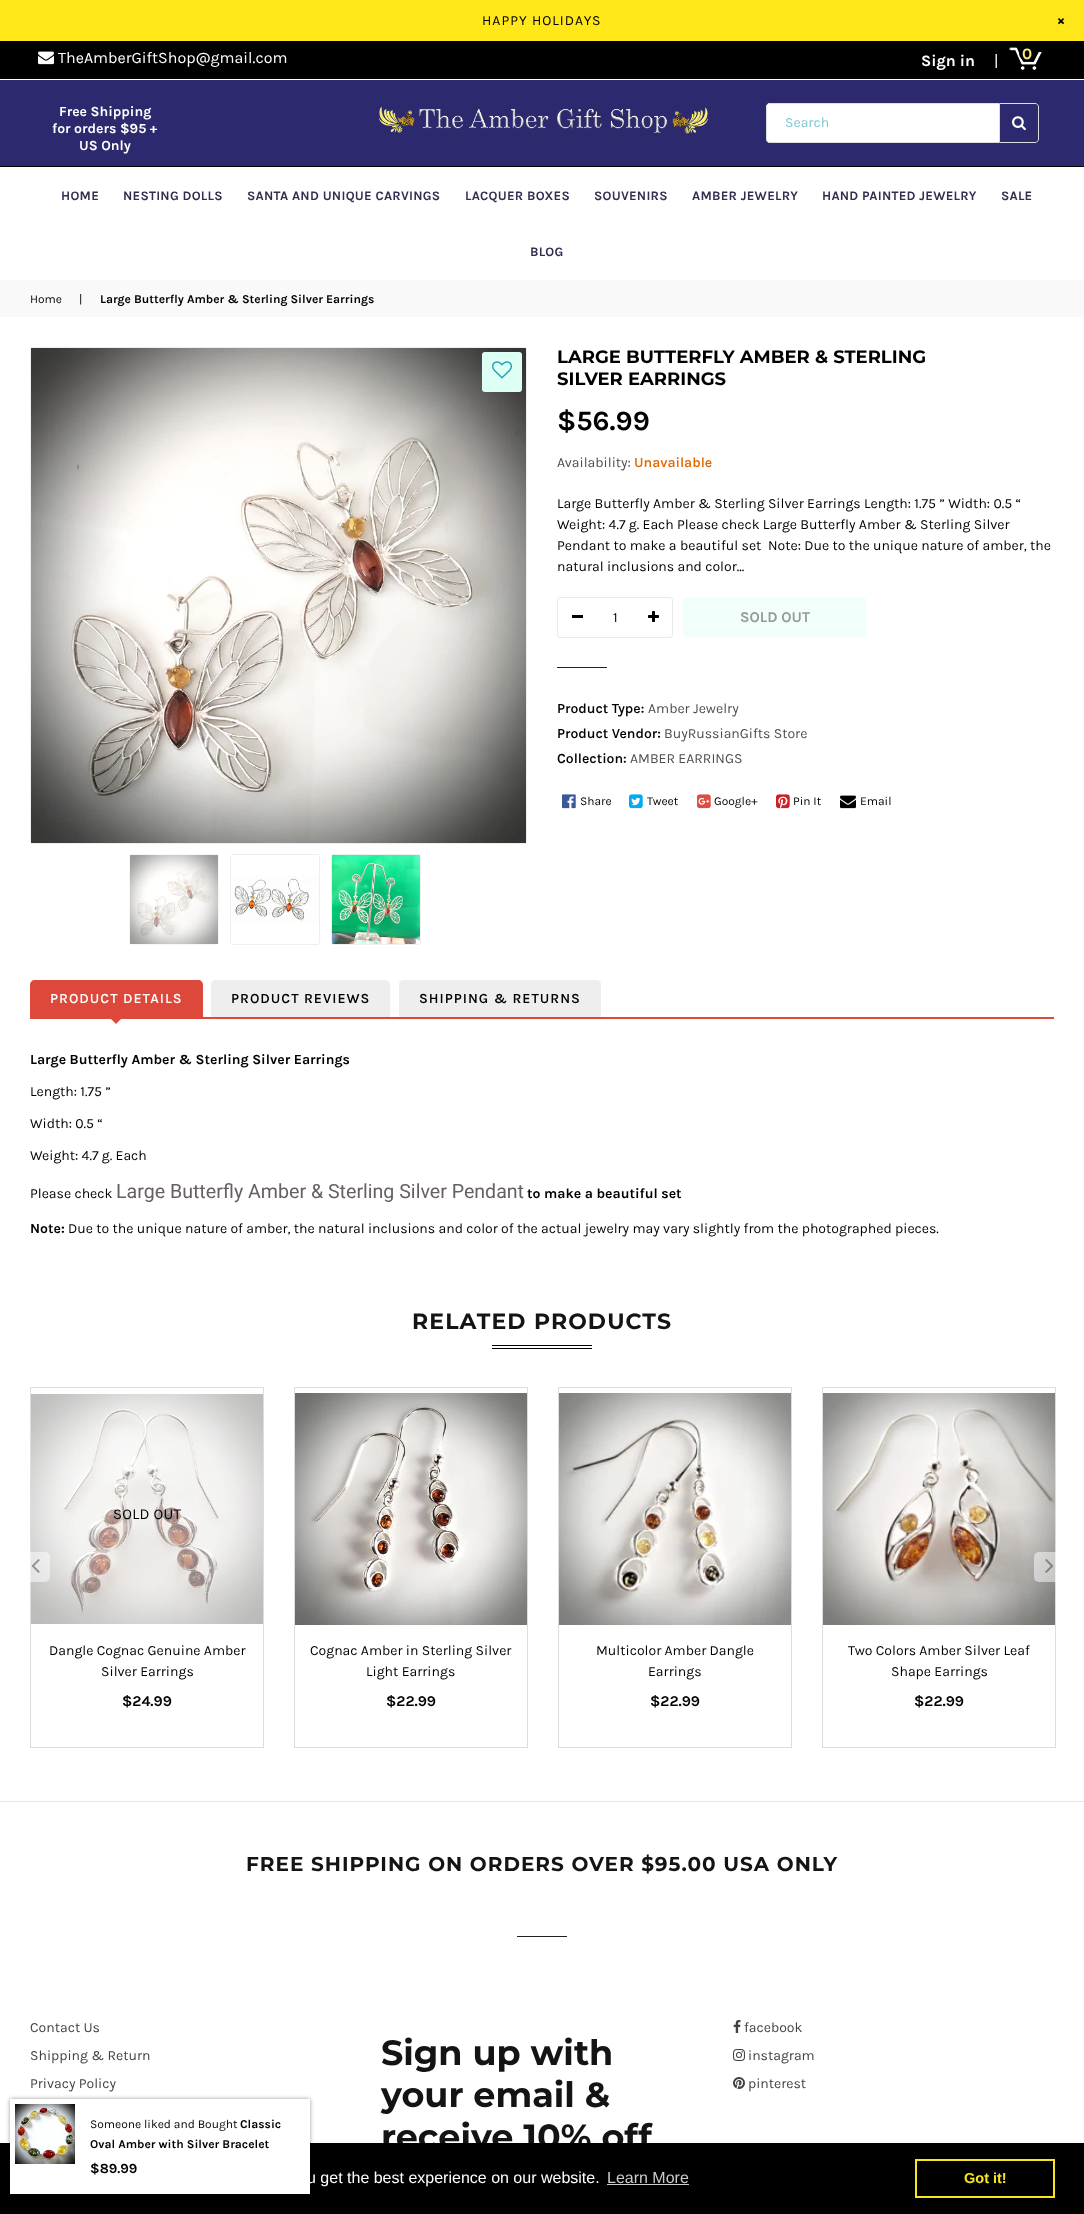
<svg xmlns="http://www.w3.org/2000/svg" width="1084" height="2214">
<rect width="100%" height="100%" fill="#fff"/>
<rect width="1084" height="41" fill="#ffe719"/>
<text x="482" y="25" style="font-family:Karla;font-size:14px;letter-spacing:1px;fill:#000">HAPPY HOLIDAYS</text>
<text x="1057" y="25" style="font-family:Karla;font-size:15px;font-weight:bold;fill:#000">×</text>
<rect y="41" width="1084" height="38" fill="#000"/>
<image x="38" y="51" width="16" height="14" href="media/1.png"/>
<text x="58" y="63" style="font-family:Karla;font-size:16px;fill:#fff">TheAmberGiftShop@gmail.com</text>
<text x="921" y="66" style="font-family:Karla;font-size:16px;font-weight:bold;fill:#fff">Sign in</text>
<text x="994" y="66" style="font-family:Karla;font-size:16px;fill:#fff">|</text>
<image x="1009" y="47" width="33" height="23" href="media/2.png"/>
<circle cx="1026.5" cy="53.5" r="7.5" fill="#000"/>
<text x="1022" y="59" style="font-family:Karla;font-size:16px;font-weight:bold;letter-spacing:-1px;fill:#fbeb7a">0</text>
<rect y="80" width="1084" height="86" fill="#2c296f"/>
<rect y="166" width="1084" height="1" fill="#000"/>
<text x="59" y="116" style="font-family:Karla;font-size:14px;font-weight:bold;fill:#fff">Free Shipping</text>
<text x="52" y="133" style="font-family:Karla;font-size:14px;font-weight:bold;fill:#fff">for orders $95 +</text>
<text x="79" y="150" style="font-family:Karla;font-size:14px;font-weight:bold;fill:#fff">US Only</text>
<image x="378" y="106" width="331" height="28" href="media/3.png"/>
<path d="M770 103h229v40h-229c-2 0-4-2-4-4v-32c0-2 2-4 4-4z" fill="#fff"/>
<path d="M770 103h229v40h-229c-2 0-4-2-4-4v-32c0-2 2-4 4-4zm0 1h229v38h-229c-2 0-3-1-3-3v-32c0-2 1-3 3-3z" fill="#ddd" fill-rule="evenodd"/>
<text x="785" y="127" style="font-family:Karla;font-size:14px;fill:#80c4d4">Search</text>
<path d="M999.5 103.5h35.5c2 0 3.5 1.5 3.5 3.5v32c0 2-1.5 3.5-3.5 3.5h-35.5z" fill="none" stroke="#ddd"/>
<image x="1012" y="116" width="14" height="15" href="media/4.png"/>
<text x="61" y="200" style="font-family:Karla;font-size:13px;font-weight:bold;letter-spacing:0.25px;fill:#312f4f">HOME</text>
<text x="123" y="200" style="font-family:Karla;font-size:13px;font-weight:bold;letter-spacing:0.25px;fill:#312f4f">NESTING DOLLS</text>
<text x="247" y="200" style="font-family:Karla;font-size:13px;font-weight:bold;letter-spacing:0.25px;fill:#312f4f">SANTA AND UNIQUE CARVINGS</text>
<text x="465" y="200" style="font-family:Karla;font-size:13px;font-weight:bold;letter-spacing:0.25px;fill:#312f4f">LACQUER BOXES</text>
<text x="594" y="200" style="font-family:Karla;font-size:13px;font-weight:bold;letter-spacing:0.25px;fill:#312f4f">SOUVENIRS</text>
<text x="692" y="200" style="font-family:Karla;font-size:13px;font-weight:bold;letter-spacing:0.25px;fill:#312f4f">AMBER JEWELRY</text>
<text x="822" y="200" style="font-family:Karla;font-size:13px;font-weight:bold;letter-spacing:0.25px;fill:#312f4f">HAND PAINTED JEWELRY</text>
<text x="1001" y="200" style="font-family:Karla;font-size:13px;font-weight:bold;letter-spacing:0.25px;fill:#312f4f">SALE</text>
<text x="530" y="256" style="font-family:Karla;font-size:13px;font-weight:bold;letter-spacing:0.25px;fill:#312f4f">BLOG</text>
<rect y="280" width="1084" height="37" fill="#f9f9f9"/>
<text x="30" y="303" style="font-family:Karla;font-size:12px;fill:#000">Home</text>
<text x="79" y="303" style="font-family:Karla;font-size:12px;fill:#000">|</text>
<text x="100" y="303" style="font-family:Karla;font-size:12px;font-weight:bold;fill:#000">Large Butterfly Amber &amp; Sterling Silver Earrings</text>
<rect x="30.5" y="347.5" width="496" height="496" rx="2.5" fill="none" stroke="#eee"/>
<image x="31" y="348" width="495" height="495" href="media/5.png"/>
<rect x="482" y="352" width="40" height="40" rx="3" fill="#ddfff4"/>
<image x="492" y="361" width="20" height="18" href="media/6.png"/>
<rect x="129.5" y="854.5" width="89" height="90" rx="2.5" fill="none" stroke="#f7f7f7"/>
<image x="130" y="855" width="88" height="89" href="media/7.png"/>
<rect x="230.5" y="854.5" width="89" height="90" rx="2.5" fill="none" stroke="#eee"/>
<image x="231" y="855" width="88" height="89" href="media/8.png"/>
<rect x="331.5" y="854.5" width="89" height="90" rx="2.5" fill="none" stroke="#eee"/>
<image x="332" y="855" width="88" height="89" href="media/9.png"/>
<text x="557" y="363" style="font-family:Montserrat;font-size:18px;font-weight:bold;fill:#000">LARGE BUTTERFLY AMBER &amp; STERLING</text>
<text x="557" y="385" style="font-family:Montserrat;font-size:18px;font-weight:bold;fill:#000">SILVER EARRINGS</text>
<text x="557" y="430" style="font-family:Karla;font-size:28px;font-weight:bold;fill:#000">$56.99</text>
<text x="557" y="467" style="font-family:Karla;font-size:14px;fill:#4d4d4d">Availability:</text>
<text x="634" y="467" style="font-family:Karla;font-size:14px;font-weight:600;fill:#e06900">Unavailable</text>
<text x="557" y="508" style="font-family:Karla;font-size:14px;fill:#000">Large Butterfly Amber &amp; Sterling Silver Earrings Length: 1.75 ” Width: 0.5 “</text>
<text x="557" y="529" style="font-family:Karla;font-size:14px;fill:#000">Weight: 4.7 g. Each Please check Large Butterfly Amber &amp; Sterling Silver</text>
<text x="557" y="550" style="font-family:Karla;font-size:14px;fill:#000" xml:space="preserve">Pendant to make a beautiful set  Note: Due to the unique nature of amber, the</text>
<text x="557" y="571" style="font-family:Karla;font-size:14px;fill:#000">natural inclusions and color...</text>
<rect x="557.5" y="597.5" width="115" height="40" rx="2.5" fill="none" stroke="#e8e9eb"/>
<rect x="572" y="615" width="11" height="3" fill="#000"/>
<text x="613" y="622" style="font-family:Karla;font-size:14px;fill:#000">1</text>
<image x="648" y="611" width="11" height="11" href="media/10.png"/>
<rect x="683" y="597" width="183" height="40" rx="3" fill="#f1fffb"/>
<text x="740" y="622" style="font-family:Karla;font-size:15px;font-weight:bold;fill:#999">SOLD OUT</text>
<rect x="557" y="667" width="50" height="1" fill="#1f2021"/>
<text x="557" y="713" style="font-family:Karla;font-size:14px;font-weight:600;fill:#000">Product Type:</text>
<text x="648" y="713" style="font-family:Karla;font-size:14px;fill:#4d4d4d">Amber Jewelry</text>
<text x="557" y="738" style="font-family:Karla;font-size:14px;font-weight:600;fill:#000">Product Vendor:</text>
<text x="664" y="738" style="font-family:Karla;font-size:14px;fill:#4d4d4d">BuyRussianGifts Store</text>
<text x="557" y="763" style="font-family:Karla;font-size:14px;font-weight:600;fill:#000">Collection:</text>
<text x="630" y="763" style="font-family:Karla;font-size:14px;fill:#4d4d4d">AMBER EARRINGS</text>
<image x="562" y="794" width="14" height="15" href="media/11.png"/>
<text x="580" y="805" style="font-family:Karla;font-size:12px;fill:#000">Share</text>
<image x="629" y="794" width="14" height="15" href="media/12.png"/>
<text x="647" y="805" style="font-family:Karla;font-size:12px;fill:#000">Tweet</text>
<image x="697" y="794" width="14" height="15" href="media/13.png"/>
<text x="714" y="805" style="font-family:Karla;font-size:12px;fill:#000">Google+</text>
<image x="776" y="794" width="14" height="15" href="media/14.png"/>
<text x="793" y="805" style="font-family:Karla;font-size:12px;fill:#000">Pin It</text>
<image x="840" y="795" width="16" height="14" href="media/15.png"/>
<text x="860" y="805" style="font-family:Karla;font-size:12px;fill:#000">Email</text>
<rect x="30" y="1017" width="1024" height="2" fill="#de483b"/>
<path d="M35 980h163c3 0 5 2 5 5v32h-173v-32c0-3 2-5 5-5z" fill="#de483b"/>
<text x="50" y="1003" style="font-family:Karla;font-size:14px;font-weight:600;letter-spacing:1px;fill:#fff">PRODUCT DETAILS</text>
<path d="M109 1017h14l-7 7z" fill="#de483b"/>
<path d="M216 980h169c3 0 5 2 5 5v32h-179v-32c0-3 2-5 5-5z" fill="#eee"/>
<text x="231" y="1003" style="font-family:Karla;font-size:14px;font-weight:600;letter-spacing:1px;fill:#000">PRODUCT REVIEWS</text>
<path d="M404 980h192c3 0 5 2 5 5v32h-202v-32c0-3 2-5 5-5z" fill="#eee"/>
<text x="419" y="1003" style="font-family:Karla;font-size:14px;font-weight:600;letter-spacing:1px;fill:#000">SHIPPING &amp; RETURNS</text>
<text x="30" y="1064" style="font-family:Karla;font-size:14px;font-weight:bold;fill:#000">Large Butterfly Amber &amp; Sterling Silver Earrings</text>
<text x="30" y="1096" style="font-family:Karla;font-size:14px;fill:#000">Length: 1.75 ”</text>
<text x="30" y="1128" style="font-family:Karla;font-size:14px;fill:#000">Width: 0.5 “</text>
<text x="30" y="1160" style="font-family:Karla;font-size:14px;fill:#000">Weight: 4.7 g. Each</text>
<text x="30" y="1198" style="font-family:Karla;font-size:14px;fill:#000">Please check</text>
<text x="116" y="1198" style="font-family:Roboto;font-size:19.6px;fill:#676060">Large Butterfly Amber &amp; Sterling Silver Pendant</text>
<text x="527" y="1198" style="font-family:Karla;font-size:14px;font-weight:bold;fill:#000">to make a beautiful set</text>
<text x="30" y="1233" style="font-family:Karla;font-size:14px;font-weight:bold;fill:#000">Note:</text>
<text x="68" y="1233" style="font-family:Karla;font-size:14px;fill:#000">Due to the unique nature of amber, the natural inclusions and color of the actual jewelry may vary slightly from the photographed pieces.</text>
<text x="412" y="1329" style="font-family:Montserrat;font-size:22px;font-weight:bold;letter-spacing:1.1px;fill:#141414">RELATED PRODUCTS</text>
<rect x="492" y="1345" width="100" height="1" fill="#000"/>
<rect x="492" y="1348" width="100" height="1" fill="#000"/>
<rect x="30.5" y="1387.5" width="233" height="360" fill="none" stroke="#ddd"/>
<image x="31" y="1394" width="232" height="230" href="media/17.png"/>
<rect x="20" y="1552" width="30" height="30" rx="5" fill="#ffffff80"/>
<image x="31" y="1559" width="9" height="14" href="media/16.png"/>
<text x="113" y="1519" style="font-family:Karla;font-size:15px;letter-spacing:0.25px;fill:#000">SOLD OUT</text>
<text x="49" y="1655" style="font-family:Karla;font-size:14px;fill:#000">Dangle Cognac Genuine Amber</text>
<text x="101" y="1676" style="font-family:Karla;font-size:14px;fill:#000">Silver Earrings</text>
<text x="122" y="1706" style="font-family:Karla;font-size:15px;font-weight:bold;fill:#000">$24.99</text>
<rect x="294.5" y="1387.5" width="233" height="360" fill="none" stroke="#ddd"/>
<image x="295" y="1393" width="232" height="232" href="media/18.png"/>
<text x="310" y="1655" style="font-family:Karla;font-size:14px;fill:#000">Cognac Amber in Sterling Silver</text>
<text x="366" y="1676" style="font-family:Karla;font-size:14px;fill:#000">Light Earrings</text>
<text x="386" y="1706" style="font-family:Karla;font-size:15px;font-weight:bold;fill:#000">$22.99</text>
<rect x="558.5" y="1387.5" width="233" height="360" fill="none" stroke="#ddd"/>
<image x="559" y="1393" width="232" height="232" href="media/19.png"/>
<text x="596" y="1655" style="font-family:Karla;font-size:14px;fill:#000">Multicolor Amber Dangle</text>
<text x="648" y="1676" style="font-family:Karla;font-size:14px;fill:#000">Earrings</text>
<text x="650" y="1706" style="font-family:Karla;font-size:15px;font-weight:bold;fill:#000">$22.99</text>
<rect x="822.5" y="1387.5" width="233" height="360" fill="none" stroke="#ddd"/>
<image x="823" y="1393" width="232" height="232" href="media/20.png"/>
<text x="848" y="1655" style="font-family:Karla;font-size:14px;fill:#000">Two Colors Amber Silver Leaf</text>
<text x="891" y="1676" style="font-family:Karla;font-size:14px;fill:#000">Shape Earrings</text>
<text x="914" y="1706" style="font-family:Karla;font-size:15px;font-weight:bold;fill:#000">$22.99</text>
<rect x="1034" y="1552" width="30" height="30" rx="5" fill="#ffffff80"/>
<image x="1045" y="1559" width="9" height="14" href="media/21.png"/>
<rect y="1801" width="1084" height="1" fill="#e6e6e6"/>
<text x="246" y="1871" style="font-family:Montserrat;font-size:20px;font-weight:bold;letter-spacing:1px;fill:#141414">FREE SHIPPING ON ORDERS OVER $95.00 USA ONLY</text>
<rect x="517" y="1936" width="50" height="1" fill="#1f2021"/>
<text x="30" y="2032" style="font-family:Karla;font-size:14px;fill:#444141">Contact Us</text>
<text x="30" y="2060" style="font-family:Karla;font-size:14px;fill:#444141">Shipping &amp; Return</text>
<text x="30" y="2088" style="font-family:Karla;font-size:14px;fill:#444141">Privacy Policy</text>
<text x="381" y="2065" style="font-family:Montserrat;font-size:35px;font-weight:bold;fill:#141414">Sign up with</text>
<text x="381" y="2107" style="font-family:Montserrat;font-size:35px;font-weight:bold;fill:#141414">your email &amp;</text>
<text x="381" y="2149" style="font-family:Montserrat;font-size:35px;font-weight:bold;fill:#141414">receive 10% off</text>
<image x="733" y="2020" width="8" height="13" href="media/22.png"/>
<text x="744" y="2032" style="font-family:Karla;font-size:14px;fill:#444141">facebook</text>
<image x="733" y="2049" width="12" height="12" href="media/23.png"/>
<text x="748" y="2060" style="font-family:Karla;font-size:14px;fill:#444141">instagram</text>
<image x="733" y="2077" width="12" height="12" href="media/24.png"/>
<text x="748" y="2088" style="font-family:Karla;font-size:14px;fill:#444141">pinterest</text>
<rect y="2143" width="1084" height="71" fill="#000"/>
<rect x="10" y="2099" width="300" height="95" fill="#00000066" filter="blur(2px)"/>
<rect x="10" y="2099" width="300" height="95" fill="#fff"/>
<image x="15" y="2104" width="60" height="60" href="media/25.png"/>
<text x="90" y="2128" style="font-family:Karla;font-size:12px;fill:#000">Someone liked and Bought</text>
<text x="240" y="2128" style="font-family:Karla;font-size:12px;font-weight:bold;fill:#000">Classic</text>
<text x="90" y="2148" style="font-family:Karla;font-size:12px;font-weight:bold;fill:#000">Oval Amber with Silver Bracelet</text>
<text x="90" y="2173" style="font-family:Karla;font-size:14px;font-weight:bold;fill:#000">$89.99</text>
<text x="307" y="2183" style="font-family:Liberation Sans;font-size:16px;fill:#fff">u get the best experience on our website.</text>
<text x="607" y="2183" style="font-family:Liberation Sans;font-size:16px;fill:#ccc">Learn More</text>
<rect x="607" y="2184" width="82" height="1" fill="#ccc"/>
<rect x="916" y="2160" width="138" height="37" fill="none" stroke="#f8e71c" stroke-width="2"/>
<text x="964" y="2183" style="font-family:Liberation Sans;font-size:14.5px;font-weight:bold;fill:#f8e71c">Got it!</text>
</svg>
